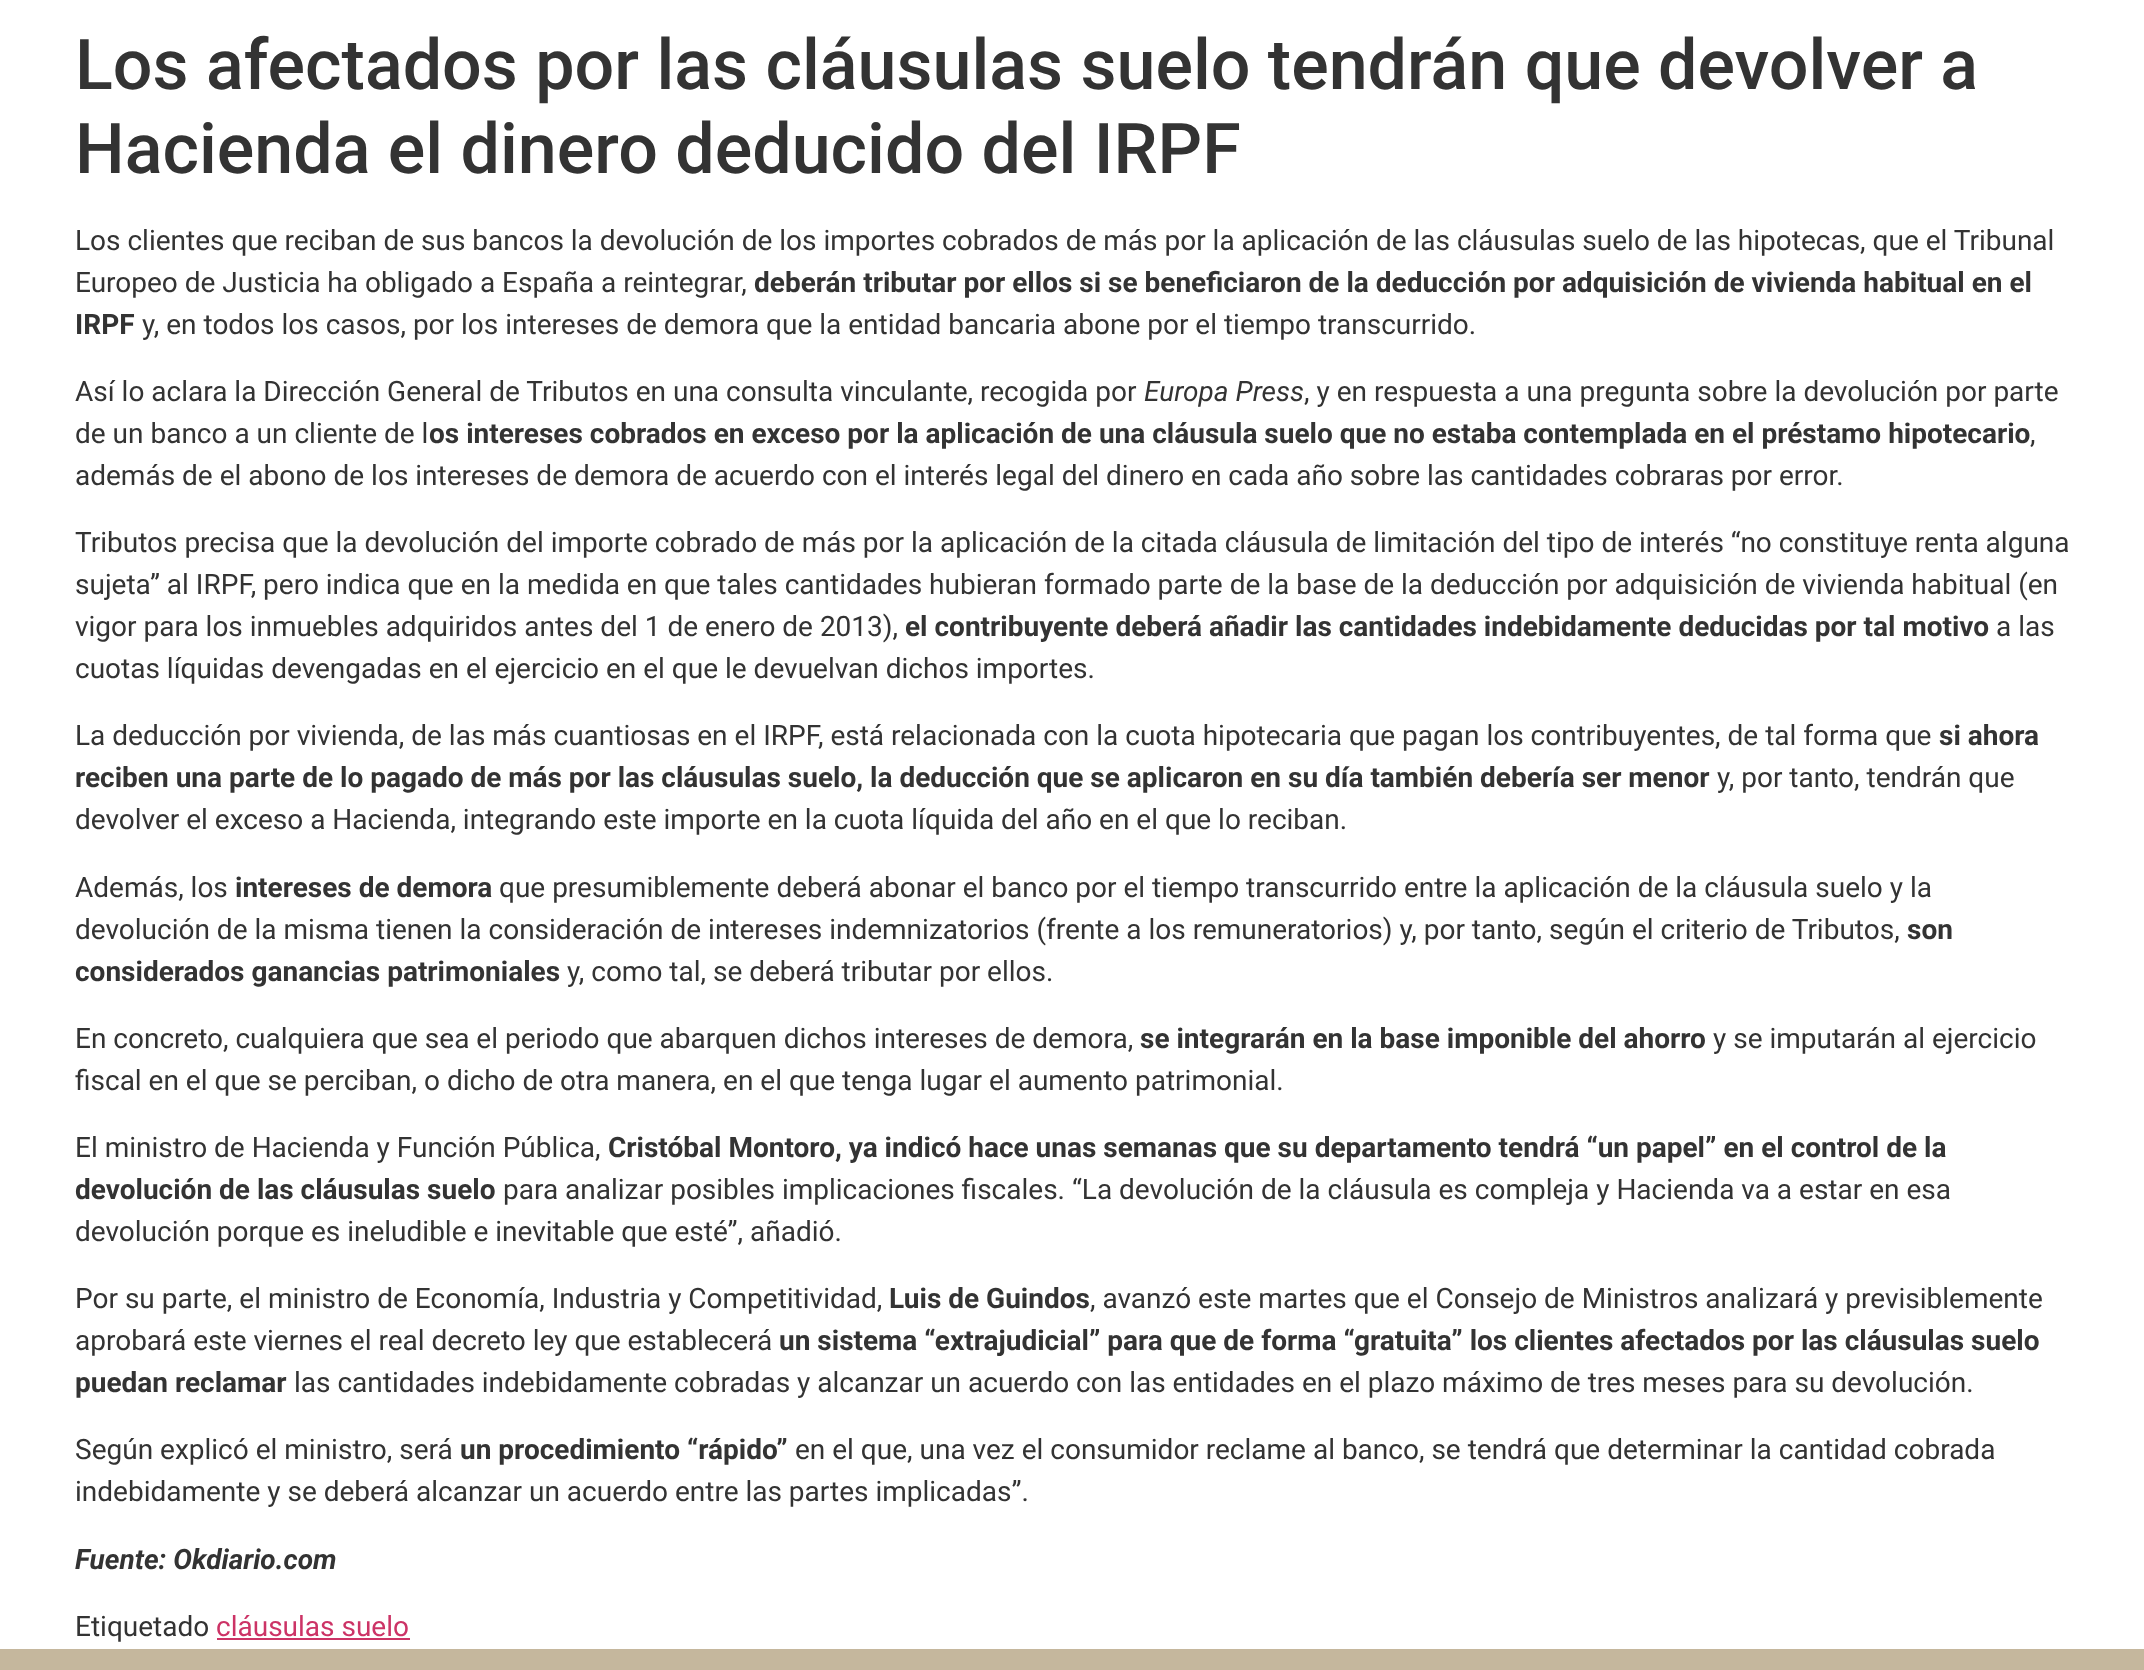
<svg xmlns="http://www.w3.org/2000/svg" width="2144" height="1670">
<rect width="100%" height="100%" fill="#fff"/>
<text x="75" y="89" style="font-family:Roboto;font-size:70px;font-weight:500;fill:#333">Los afectados por las cláusulas suelo tendrán que devolver a</text>
<text x="75" y="173" style="font-family:Roboto;font-size:70px;font-weight:500;fill:#333">Hacienda el dinero deducido del IRPF</text>
<text x="75" y="250" style="font-family:Roboto;font-size:28px;fill:#333">Los clientes que reciban de sus bancos la devolución de los importes cobrados de más por la aplicación de las cláusulas suelo de las hipotecas, que el Tribunal</text>
<text x="75" y="292" style="font-family:Roboto;font-size:28px;fill:#333">Europeo de Justicia ha obligado a España a reintegrar,</text>
<text x="754" y="292" style="font-family:Roboto;font-size:28px;font-weight:bold;fill:#333">deberán tributar por ellos si se beneficiaron de la deducción por adquisición de vivienda habitual en el</text>
<text x="75" y="334" style="font-family:Roboto;font-size:28px;font-weight:bold;fill:#333">IRPF</text>
<text x="142" y="334" style="font-family:Roboto;font-size:28px;fill:#333">y, en todos los casos, por los intereses de demora que la entidad bancaria abone por el tiempo transcurrido.</text>
<text x="75" y="401" style="font-family:Roboto;font-size:28px;fill:#333">Así lo aclara la Dirección General de Tributos en una consulta vinculante, recogida por</text>
<text x="1144" y="401" style="font-family:Roboto;font-size:28px;font-style:italic;fill:#333">Europa Press</text>
<text x="1304" y="401" style="font-family:Roboto;font-size:28px;fill:#333">, y en respuesta a una pregunta sobre la devolución por parte</text>
<text x="75" y="443" style="font-family:Roboto;font-size:28px;fill:#333">de un banco a un cliente de l</text>
<text x="429" y="443" style="font-family:Roboto;font-size:28px;font-weight:bold;fill:#333">os intereses cobrados en exceso por la aplicación de una cláusula suelo que no estaba contemplada en el préstamo hipotecario</text>
<text x="2030" y="443" style="font-family:Roboto;font-size:28px;fill:#333">,</text>
<text x="75" y="485" style="font-family:Roboto;font-size:28px;fill:#333">además de el abono de los intereses de demora de acuerdo con el interés legal del dinero en cada año sobre las cantidades cobraras por error.</text>
<text x="75" y="552" style="font-family:Roboto;font-size:28px;fill:#333">Tributos precisa que la devolución del importe cobrado de más por la aplicación de la citada cláusula de limitación del tipo de interés “no constituye renta alguna</text>
<text x="75" y="594" style="font-family:Roboto;font-size:28px;fill:#333">sujeta” al IRPF, pero indica que en la medida en que tales cantidades hubieran formado parte de la base de la deducción por adquisición de vivienda habitual (en</text>
<text x="75" y="636" style="font-family:Roboto;font-size:28px;fill:#333">vigor para los inmuebles adquiridos antes del 1 de enero de 2013),</text>
<text x="905" y="636" style="font-family:Roboto;font-size:28px;font-weight:bold;fill:#333">el contribuyente deberá añadir las cantidades indebidamente deducidas por tal motivo</text>
<text x="1996" y="636" style="font-family:Roboto;font-size:28px;fill:#333">a las</text>
<text x="75" y="678" style="font-family:Roboto;font-size:28px;fill:#333">cuotas líquidas devengadas en el ejercicio en el que le devuelvan dichos importes.</text>
<text x="75" y="745" style="font-family:Roboto;font-size:28px;fill:#333">La deducción por vivienda, de las más cuantiosas en el IRPF, está relacionada con la cuota hipotecaria que pagan los contribuyentes, de tal forma que</text>
<text x="1939" y="745" style="font-family:Roboto;font-size:28px;font-weight:bold;fill:#333">si ahora</text>
<text x="75" y="787" style="font-family:Roboto;font-size:28px;font-weight:bold;fill:#333">reciben una parte de lo pagado de más por las cláusulas suelo, la deducción que se aplicaron en su día también debería ser menor</text>
<text x="1717" y="787" style="font-family:Roboto;font-size:28px;fill:#333">y, por tanto, tendrán que</text>
<text x="75" y="829" style="font-family:Roboto;font-size:28px;fill:#333">devolver el exceso a Hacienda, integrando este importe en la cuota líquida del año en el que lo reciban.</text>
<text x="75" y="897" style="font-family:Roboto;font-size:28px;fill:#333">Además, los</text>
<text x="235" y="897" style="font-family:Roboto;font-size:28px;font-weight:bold;fill:#333">intereses de demora</text>
<text x="499" y="897" style="font-family:Roboto;font-size:28px;fill:#333">que presumiblemente deberá abonar el banco por el tiempo transcurrido entre la aplicación de la cláusula suelo y la</text>
<text x="75" y="939" style="font-family:Roboto;font-size:28px;fill:#333">devolución de la misma tienen la consideración de intereses indemnizatorios (frente a los remuneratorios) y, por tanto, según el criterio de Tributos,</text>
<text x="1907" y="939" style="font-family:Roboto;font-size:28px;font-weight:bold;fill:#333">son</text>
<text x="75" y="981" style="font-family:Roboto;font-size:28px;font-weight:bold;fill:#333">considerados ganancias patrimoniales</text>
<text x="567" y="981" style="font-family:Roboto;font-size:28px;fill:#333">y, como tal, se deberá tributar por ellos.</text>
<text x="75" y="1048" style="font-family:Roboto;font-size:28px;fill:#333">En concreto, cualquiera que sea el periodo que abarquen dichos intereses de demora,</text>
<text x="1140" y="1048" style="font-family:Roboto;font-size:28px;font-weight:bold;fill:#333">se integrarán en la base imponible del ahorro</text>
<text x="1713" y="1048" style="font-family:Roboto;font-size:28px;fill:#333">y se imputarán al ejercicio</text>
<text x="75" y="1090" style="font-family:Roboto;font-size:28px;fill:#333">fiscal en el que se perciban, o dicho de otra manera, en el que tenga lugar el aumento patrimonial.</text>
<text x="75" y="1157" style="font-family:Roboto;font-size:28px;fill:#333">El ministro de Hacienda y Función Pública,</text>
<text x="608" y="1157" style="font-family:Roboto;font-size:28px;font-weight:bold;fill:#333">Cristóbal Montoro, ya indicó hace unas semanas que su departamento tendrá “un papel” en el control de la</text>
<text x="75" y="1199" style="font-family:Roboto;font-size:28px;font-weight:bold;fill:#333">devolución de las cláusulas suelo</text>
<text x="503" y="1199" style="font-family:Roboto;font-size:28px;fill:#333">para analizar posibles implicaciones fiscales. “La devolución de la cláusula es compleja y Hacienda va a estar en esa</text>
<text x="75" y="1241" style="font-family:Roboto;font-size:28px;fill:#333">devolución porque es ineludible e inevitable que esté”, añadió.</text>
<text x="75" y="1308" style="font-family:Roboto;font-size:28px;fill:#333">Por su parte, el ministro de Economía, Industria y Competitividad,</text>
<text x="889" y="1308" style="font-family:Roboto;font-size:28px;font-weight:bold;fill:#333">Luis de Guindos</text>
<text x="1090" y="1308" style="font-family:Roboto;font-size:28px;fill:#333">, avanzó este martes que el Consejo de Ministros analizará y previsiblemente</text>
<text x="75" y="1350" style="font-family:Roboto;font-size:28px;fill:#333">aprobará este viernes el real decreto ley que establecerá</text>
<text x="779" y="1350" style="font-family:Roboto;font-size:28px;font-weight:bold;fill:#333">un sistema “extrajudicial” para que de forma “gratuita” los clientes afectados por las cláusulas suelo</text>
<text x="75" y="1392" style="font-family:Roboto;font-size:28px;font-weight:bold;fill:#333">puedan reclamar</text>
<text x="294" y="1392" style="font-family:Roboto;font-size:28px;fill:#333">las cantidades indebidamente cobradas y alcanzar un acuerdo con las entidades en el plazo máximo de tres meses para su devolución.</text>
<text x="75" y="1459" style="font-family:Roboto;font-size:28px;fill:#333">Según explicó el ministro, será</text>
<text x="460" y="1459" style="font-family:Roboto;font-size:28px;font-weight:bold;fill:#333">un procedimiento “rápido”</text>
<text x="795" y="1459" style="font-family:Roboto;font-size:28px;fill:#333">en el que, una vez el consumidor reclame al banco, se tendrá que determinar la cantidad cobrada</text>
<text x="75" y="1501" style="font-family:Roboto;font-size:28px;fill:#333">indebidamente y se deberá alcanzar un acuerdo entre las partes implicadas”.</text>
<text x="75" y="1569" style="font-family:Roboto;font-size:28px;font-weight:bold;font-style:italic;fill:#333">Fuente: Okdiario.com</text>
<text x="75" y="1636" style="font-family:Roboto;font-size:28px;fill:#333">Etiquetado</text>
<text x="216" y="1636" style="font-family:Roboto;font-size:28px;fill:#c36">cláusulas suelo</text>
<rect x="217" y="1638" width="193" height="2" fill="#c36"/>
<rect y="1649" width="2144" height="21" fill="#c5b79d"/>
</svg>
